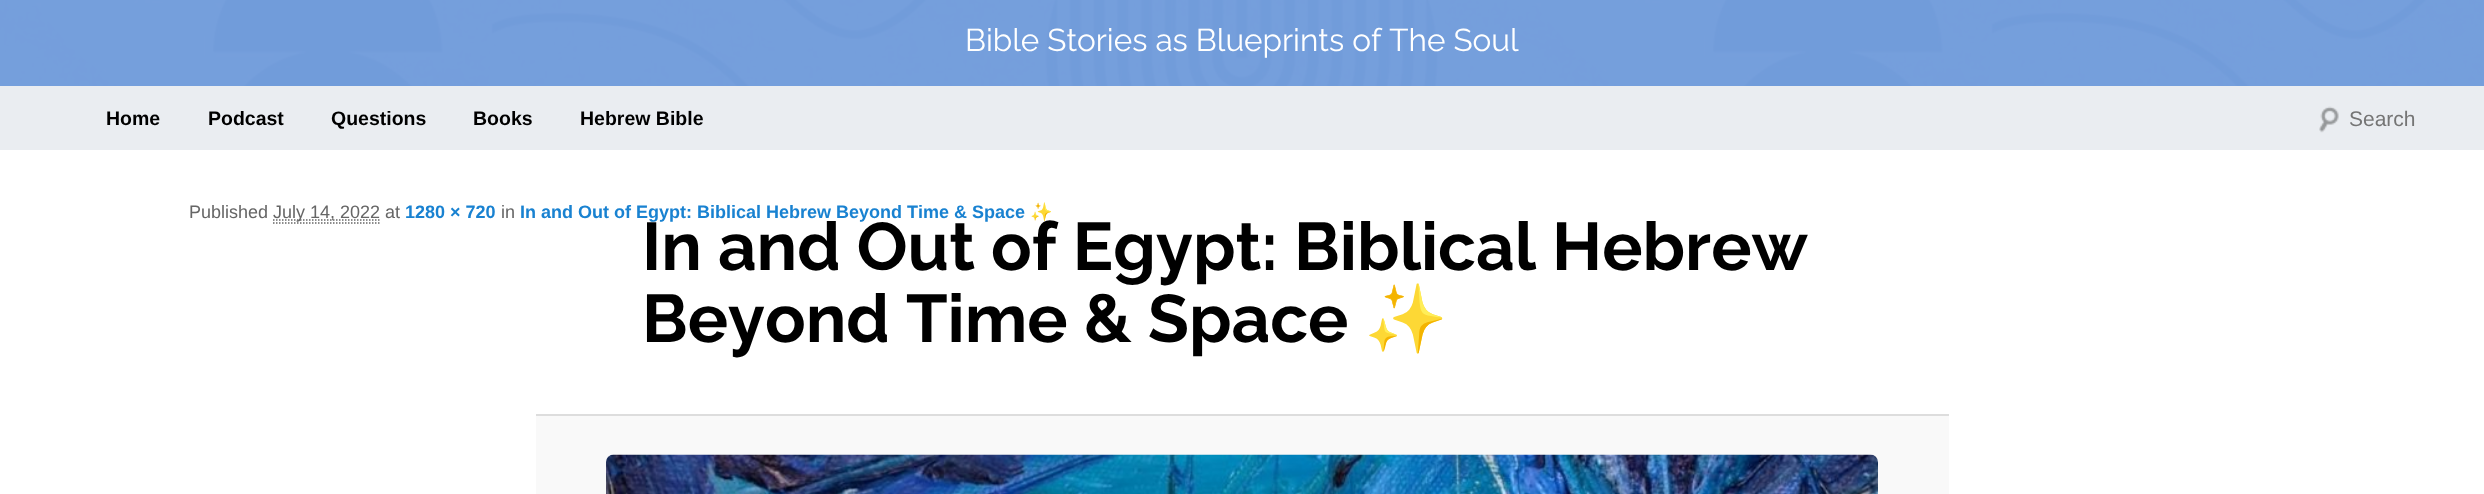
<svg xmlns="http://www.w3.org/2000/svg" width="2484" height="494">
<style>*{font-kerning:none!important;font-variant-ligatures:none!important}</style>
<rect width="100%" height="100%" fill="#fff"/>
<image x="0" y="0" width="2484" height="86" href="media/1.png"/>
<rect width="2484" height="86" fill="#6895d8e6"/>
<text x="965" y="51" style="font-family:Raleway;font-size:31.5px;fill:#fff">Bible Stories as Blueprints of The Soul</text>
<rect y="86" width="2484" height="64" fill="#eaedf1"/>
<text x="106" y="125" style="font-family:Liberation Sans;font-size:19.5px;font-weight:bold;fill:#000">Home</text>
<text x="208" y="125" style="font-family:Liberation Sans;font-size:19.5px;font-weight:bold;fill:#000">Podcast</text>
<text x="331" y="125" style="font-family:Liberation Sans;font-size:19.5px;font-weight:bold;fill:#000">Questions</text>
<text x="473" y="125" style="font-family:Liberation Sans;font-size:19.5px;font-weight:bold;fill:#000">Books</text>
<text x="580" y="125" style="font-family:Liberation Sans;font-size:19.5px;font-weight:bold;fill:#000">Hebrew Bible</text>
<image x="2319" y="106" width="20" height="27" href="media/2.png"/>
<text x="2349" y="126" style="font-family:Liberation Sans;font-size:21px;fill:#757575">Search</text>
<text x="189" y="218" style="font-family:Liberation Sans;font-size:18px;fill:#666">Published</text>
<path d="M273 220h107" fill="none" stroke="#666" stroke-width="1.5" stroke-dasharray="1.5 1.5"/>
<text x="273" y="218" style="font-family:Liberation Sans;font-size:18px;fill:#666">July 14, 2022 at</text>
<path d="M273 223h106.5" fill="none" stroke="#666" stroke-width="1.5" stroke-dasharray="1.5 1.5"/>
<text x="405" y="218" style="font-family:Liberation Sans;font-size:18px;font-weight:bold;fill:#1982d1">1280 × 720</text>
<text x="501" y="218" style="font-family:Liberation Sans;font-size:18px;fill:#666">in</text>
<text x="520" y="218" style="font-family:Liberation Sans;font-size:18px;font-weight:bold;fill:#1982d1">In and Out of Egypt: Biblical Hebrew Beyond Time &amp; Space</text>
<text x="1030" y="218" style="font-family:Noto Color Emoji;font-size:18px;font-weight:bold;fill:#1982d1">✨</text>
<text x="642" y="270" style="font-family:Raleway;font-size:67.25px;font-weight:bold;fill:#000">In and Out of Egypt: Biblical Hebrew</text>
<text x="642" y="342" style="font-family:Raleway;font-size:67.25px;font-weight:bold;fill:#000">Beyond Time &amp; Space</text>
<text x="1364" y="342" style="font-family:Noto Color Emoji;font-size:67.25px;font-weight:bold;fill:#000">✨</text>
<rect x="536" y="416" width="1413" height="78" fill="#f9f9f9"/>
<rect x="536" y="414" width="1413" height="2" fill="#ddd"/>
<image x="606" y="454" width="1272" height="40" href="media/3.png"/>
</svg>
